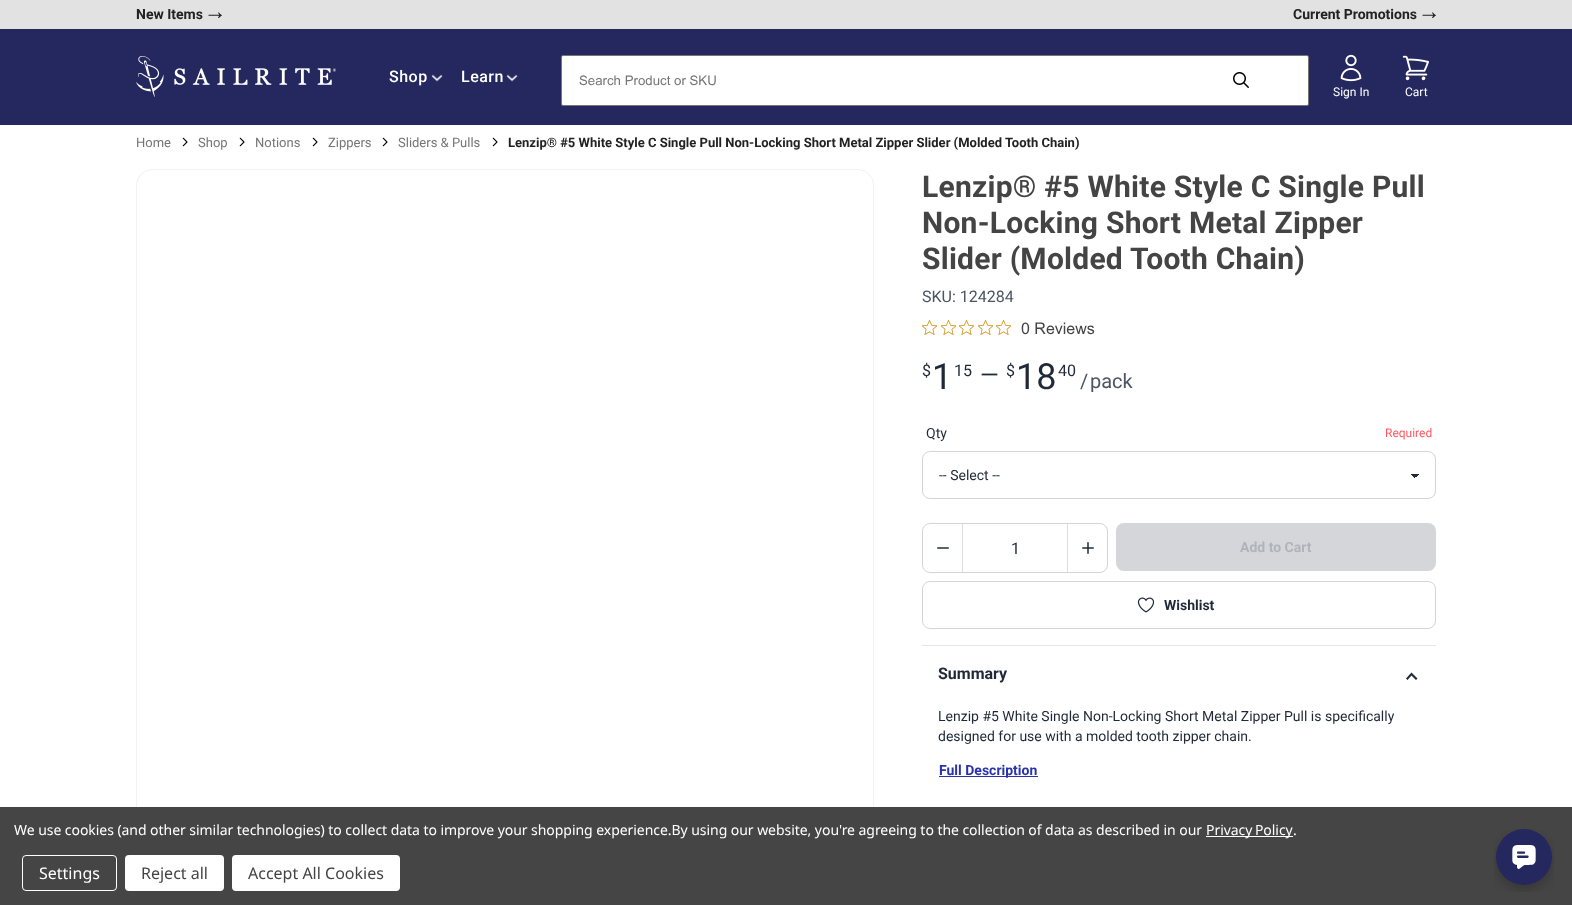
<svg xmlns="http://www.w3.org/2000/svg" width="1572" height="905">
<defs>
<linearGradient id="g1" gradientUnits="userSpaceOnUse" x1="1415" y1="474" x2="1419" y2="478"><stop offset="0.5" stop-color="#1f2937"/><stop offset="0.5" stop-color="#fff"/></linearGradient>
<linearGradient id="g2" gradientUnits="userSpaceOnUse" x1="1411" y1="478" x2="1415" y2="474"><stop offset="0.5" stop-color="#fff"/><stop offset="0.5" stop-color="#1f2937"/></linearGradient>
</defs>
<rect width="100%" height="100%" fill="#fff"/>
<rect width="1572" height="29" fill="#e2e2e2"/>
<text x="136" y="19" style="font-family:Roboto;font-size:14px;font-weight:bold;fill:#222">New Items</text>
<text x="208" y="19" style="font-family:Arial;font-size:14px;font-weight:bold;fill:#222">→</text>
<text x="1293" y="19" style="font-family:Roboto;font-size:14px;font-weight:bold;fill:#222">Current Promotions</text>
<text x="1422" y="19" style="font-family:Arial;font-size:14px;font-weight:bold;fill:#222">→</text>
<rect y="29" width="1572" height="96" fill="#24285e"/>
<image x="136" y="56" width="200" height="41" href="media/1.png"/>
<text x="389" y="82" style="font-family:Roboto;font-size:16px;font-weight:500;letter-spacing:0.5px;fill:#fff">Shop</text>
<image x="431" y="74" width="12" height="8" href="media/2.png"/>
<text x="461" y="82" style="font-family:Roboto;font-size:16px;font-weight:500;letter-spacing:0.5px;fill:#fff">Learn</text>
<image x="506" y="74" width="12" height="8" href="media/2.png"/>
<rect x="561.5" y="55.5" width="747" height="50" rx="1.5" fill="#fff" stroke="#767676"/>
<text x="579" y="85" style="font-family:Arial;font-size:13.25px;fill:#757575">Search Product or SKU</text>
<image x="1233" y="72" width="16" height="16" href="media/3.png"/>
<image x="1340" y="54" width="22" height="28" href="media/4.png"/>
<text x="1333" y="96" style="font-family:Roboto;font-size:12px;fill:#fff">Sign In</text>
<image x="1402" y="55" width="27" height="26" href="media/5.png"/>
<text x="1405" y="96" style="font-family:Roboto;font-size:12px;fill:#fff">Cart</text>
<text x="136" y="147" style="font-family:Roboto;font-size:13px;fill:#757575">Home</text>
<image x="182" y="137" width="6" height="10" href="media/6.png"/>
<text x="198" y="147" style="font-family:Roboto;font-size:13px;fill:#757575">Shop</text>
<image x="239" y="137" width="6" height="10" href="media/6.png"/>
<text x="255" y="147" style="font-family:Roboto;font-size:13px;fill:#757575">Notions</text>
<image x="312" y="137" width="6" height="10" href="media/6.png"/>
<text x="328" y="147" style="font-family:Roboto;font-size:13px;fill:#757575">Zippers</text>
<image x="382" y="137" width="6" height="10" href="media/6.png"/>
<text x="398" y="147" style="font-family:Roboto;font-size:13px;fill:#757575">Sliders &amp; Pulls</text>
<image x="492" y="137" width="6" height="10" href="media/6.png"/>
<text x="508" y="147" style="font-family:Roboto;font-size:13px;font-weight:bold;fill:#222">Lenzip® #5 White Style C Single Pull Non-Locking Short Metal Zipper Slider (Molded Tooth Chain)</text>
<rect x="136.5" y="169.5" width="737" height="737" rx="15.5" fill="none" stroke="#f2f2f2"/>
<text x="922" y="197" style="font-family:Roboto;font-size:30px;font-weight:bold;letter-spacing:0.25px;fill:#444">Lenzip® #5 White Style C Single Pull</text>
<text x="922" y="233" style="font-family:Roboto;font-size:30px;font-weight:bold;letter-spacing:0.25px;fill:#444">Non-Locking Short Metal Zipper</text>
<text x="922" y="269" style="font-family:Roboto;font-size:30px;font-weight:bold;letter-spacing:0.25px;fill:#444">Slider (Molded Tooth Chain)</text>
<text x="922" y="302" style="font-family:Roboto;font-size:16px;fill:#4b5563">SKU: 124284</text>
<image x="922" y="320" width="15" height="15" href="media/7.png"/>
<image x="941" y="320" width="15" height="15" href="media/7.png"/>
<image x="959" y="320" width="15" height="15" href="media/7.png"/>
<image x="978" y="320" width="15" height="15" href="media/7.png"/>
<image x="996" y="320" width="15" height="15" href="media/7.png"/>
<text x="1021" y="334" style="font-family:Arial;font-size:16px;fill:#444">0 Reviews</text>
<text x="922" y="376" style="font-family:Roboto;font-size:16px;fill:#1f2937">$</text>
<text x="932" y="389" style="font-family:Roboto;font-size:36px;fill:#1f2937">1</text>
<text x="954" y="376" style="font-family:Roboto;font-size:16px;fill:#1f2937">15</text>
<text x="980" y="383" style="font-family:Roboto;font-size:24px;fill:#1f2937">—</text>
<text x="1006" y="376" style="font-family:Roboto;font-size:16px;fill:#1f2937">$</text>
<text x="1016" y="389" style="font-family:Roboto;font-size:36px;fill:#1f2937">18</text>
<text x="1058" y="376" style="font-family:Roboto;font-size:16px;fill:#1f2937">40</text>
<text x="1080" y="388" style="font-family:Roboto;font-size:20px;fill:#4b5563">/</text>
<text x="1090" y="388" style="font-family:Roboto;font-size:20px;fill:#4b5563">pack</text>
<text x="926" y="438" style="font-family:Roboto;font-size:14px;fill:#1f2937">Qty</text>
<text x="1385" y="437" style="font-family:Roboto;font-size:12px;fill:#ff5861">Required</text>
<rect x="1415" y="474" width="4" height="3" fill="url(#g1)"/>
<rect x="1411" y="474" width="4" height="4" fill="url(#g2)"/>
<rect x="922.5" y="451.5" width="513" height="47" rx="7.5" fill="none" stroke="#d2d4d7"/>
<text x="939" y="480" style="font-family:Roboto;font-size:14px;fill:#1f2937">-- Select --</text>
<rect x="922.5" y="523.5" width="185" height="49" rx="7.5" fill="none" stroke="#d1d5db"/>
<rect x="962" y="524" width="1" height="48" fill="#ddd"/>
<image x="937" y="547" width="12" height="2" href="media/8.png"/>
<text x="1011" y="554" style="font-family:Roboto;font-size:16px;fill:#1f2937">1</text>
<rect x="1067" y="524" width="1" height="48" fill="#ddd"/>
<image x="1082" y="542" width="12" height="12" href="media/9.png"/>
<rect x="1116" y="523" width="320" height="48" rx="8" fill="#2b344033"/>
<text x="1240" y="552" style="font-family:Roboto;font-size:14px;font-weight:bold;fill:#b0b4b8">Add to Cart</text>
<rect x="922.5" y="581.5" width="513" height="47" rx="7.5" fill="none" stroke="#d1d5db"/>
<image x="1137" y="597" width="18" height="16" href="media/10.png"/>
<text x="1164" y="610" style="font-family:Roboto;font-size:14px;font-weight:bold;fill:#1f2937">Wishlist</text>
<rect x="922" y="645" width="514" height="1" fill="#e5e6e6"/>
<text x="938" y="679" style="font-family:Roboto;font-size:16px;font-weight:bold;fill:#1f2937">Summary</text>
<path d="M1416 680l-4.5-4.5l-4 4.5l-1.5-1.5l5.5-6l6 6z" fill="#1f2937"/>
<text x="938" y="721" style="font-family:Roboto;font-size:14px;fill:#1f2937">Lenzip #5 White Single Non-Locking Short Metal Zipper Pull is specifically</text>
<text x="938" y="741" style="font-family:Roboto;font-size:14px;fill:#1f2937">designed for use with a molded tooth zipper chain.</text>
<rect x="939" y="776" width="99" height="1" fill="#2a33ab"/>
<text x="939" y="775" style="font-family:Roboto;font-size:14px;font-weight:bold;fill:#2a33ab">Full Description</text>
<rect y="807" width="1572" height="98" fill="#454545"/>
<text x="14" y="835" style="font-family:Noto Sans;font-size:14px;letter-spacing:-0.05px;fill:#fff">We use cookies (and other similar technologies) to collect data to improve your shopping experience.By using our website, you're agreeing to the collection of data as described in our</text>
<rect x="1206" y="836" width="87" height="1" fill="#fff"/>
<text x="1206" y="835" word-spacing="-1" style="font-family:Noto Sans;font-size:14px;letter-spacing:-0.05px;fill:#fff">Privacy Policy</text>
<text x="1293" y="835" style="font-family:Noto Sans;font-size:14px;letter-spacing:-0.05px;fill:#fff">.</text>
<rect x="22.5" y="855.5" width="94" height="35" rx="3.5" fill="none" stroke="#fff"/>
<text x="39" y="879" style="font-family:Noto Sans;font-size:16px;fill:#fff">Settings</text>
<rect x="125" y="855" width="99" height="36" rx="4" fill="#fff"/>
<text x="141" y="879" style="font-family:Noto Sans;font-size:16px;fill:#444">Reject all</text>
<rect x="232" y="855" width="168" height="36" rx="4" fill="#fff"/>
<text x="248" y="879" style="font-family:Noto Sans;font-size:16px;fill:#444">Accept All Cookies</text>
<image x="1494" y="829" width="60" height="63" href="media/11.png"/>
</svg>
